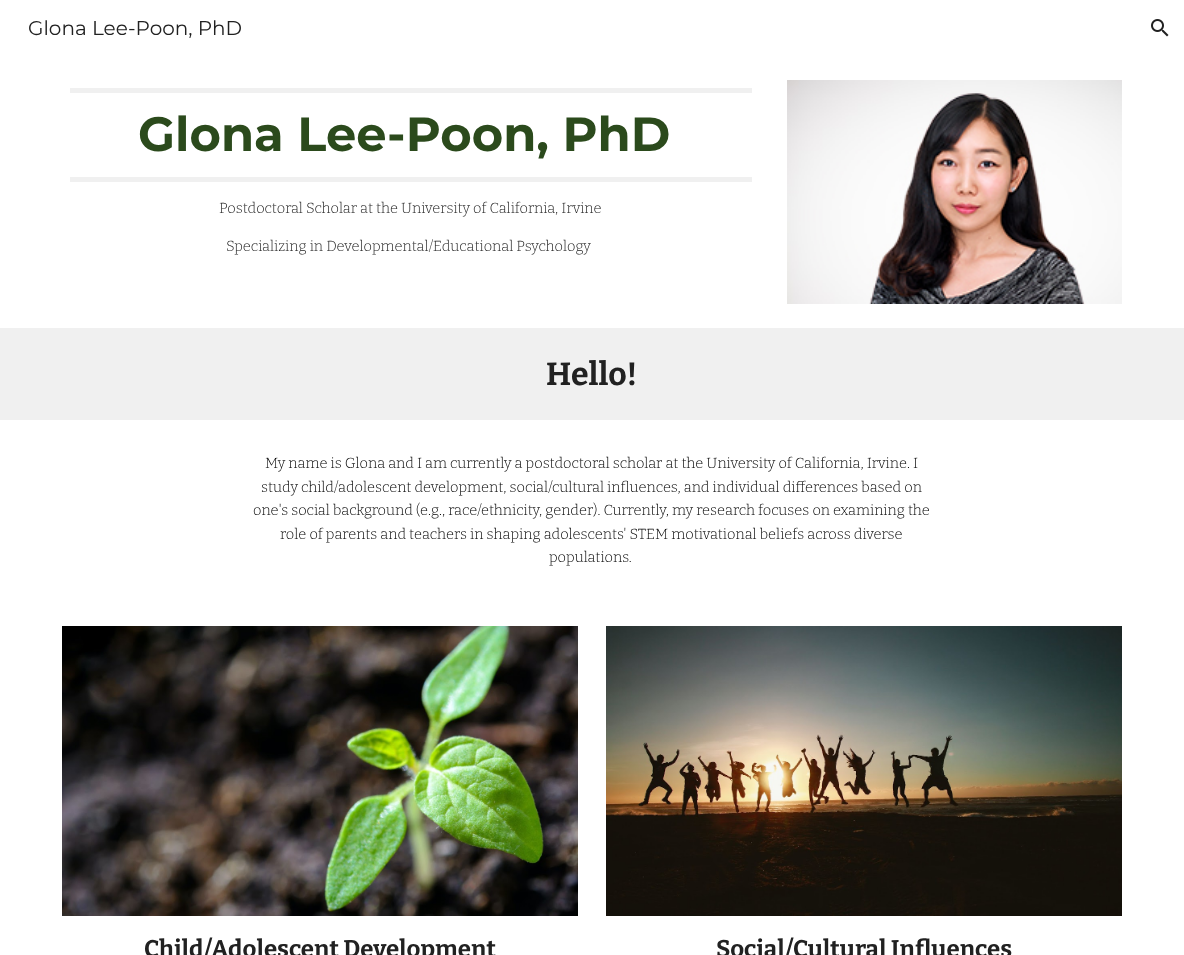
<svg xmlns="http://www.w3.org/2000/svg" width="1184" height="955">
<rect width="100%" height="100%" fill="#fff"/>
<text x="28" y="35" style="font-family:Montserrat;font-size:20px;fill:#212121">Glona Lee-Poon, PhD</text>
<image x="1151" y="19" width="18" height="18" href="media/1.png"/>
<rect x="70" y="88" width="682" height="5" fill="#f0f0f0"/>
<rect x="70" y="177" width="682" height="5" fill="#f0f0f0"/>
<text x="138" y="151" style="font-family:Montserrat;font-size:48px;font-weight:bold;fill:#2b4a1c">Glona Lee-Poon, PhD</text>
<text x="219" y="213" style="font-family:Bitter;font-size:14.65px;font-weight:300;fill:#212121">Postdoctoral Scholar at the University of California, Irvine</text>
<text x="226" y="251" style="font-family:Bitter;font-size:14.65px;font-weight:300;fill:#212121">Specializing in Developmental/Educational Psychology</text>
<image x="787" y="80" width="335" height="224" href="media/2.png"/>
<rect y="328" width="1184" height="92" fill="#f0f0f0"/>
<text x="546" y="385" style="font-family:Bitter;font-size:32px;font-weight:bold;fill:#212121">Hello!</text>
<text x="265" y="468" style="font-family:Bitter;font-size:14.65px;font-weight:300;fill:#000">My name is Glona and I am currently a postdoctoral scholar at the University of California, Irvine. I</text>
<text x="261" y="492" style="font-family:Bitter;font-size:14.65px;font-weight:300;fill:#000">study child/adolescent development, social/cultural influences, and individual differences based on</text>
<text x="253" y="515" style="font-family:Bitter;font-size:14.65px;font-weight:300;fill:#000">one's social background (e.g., race/ethnicity, gender). Currently, my research focuses on examining the</text>
<text x="280" y="539" style="font-family:Bitter;font-size:14.65px;font-weight:300;fill:#000">role of parents and teachers in shaping adolescents' STEM motivational beliefs across diverse</text>
<text x="549" y="562" style="font-family:Bitter;font-size:14.65px;font-weight:300;fill:#000">populations.</text>
<image x="62" y="626" width="516" height="290" href="media/3.png"/>
<text x="144" y="957" style="font-family:Bitter;font-size:24px;font-weight:bold;fill:#212121">Child/Adolescent Development</text>
<image x="606" y="626" width="516" height="290" href="media/4.png"/>
<text x="716" y="957" style="font-family:Bitter;font-size:24px;font-weight:bold;fill:#212121">Social/Cultural Influences</text>
</svg>
